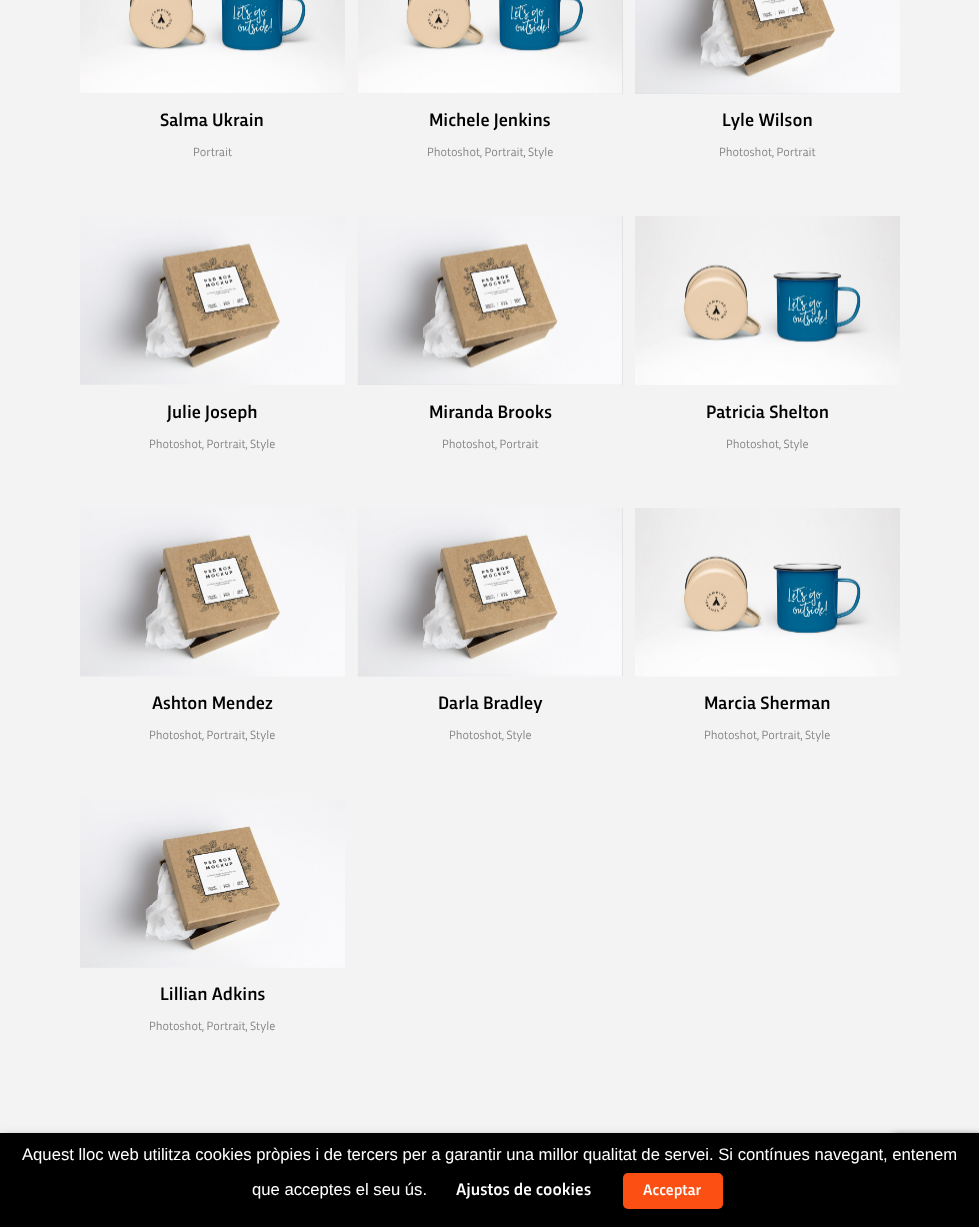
<svg xmlns="http://www.w3.org/2000/svg" width="979" height="1227">
<rect width="100%" height="100%" fill="#f3f3f3"/>
<rect x="80" y="93" width="265" height="1" fill="#dcdcdc"/>
<image x="80" y="0" width="265" height="94" href="media/1.png"/>
<text x="160" y="126" style="font-family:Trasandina;font-size:18.75px;font-weight:500;fill:#000">Salma Ukrain</text>
<text x="193" y="156" style="font-family:Trasandina;font-size:12.5px;fill:#7d7d7d">Portrait</text>
<rect x="358" width="265" height="94" fill="#dcdcdc"/>
<image x="358" y="0" width="265" height="94" href="media/2.png"/>
<text x="429" y="126" style="font-family:Trasandina;font-size:18.75px;font-weight:500;fill:#000">Michele Jenkins</text>
<text x="427" y="156" style="font-family:Trasandina;font-size:12.5px;fill:#7d7d7d">Photoshot, Portrait, Style</text>
<rect x="635" y="93" width="265" height="1" fill="#dcdcdc"/>
<image x="635" y="0" width="265" height="94" href="media/3.png"/>
<text x="722" y="126" style="font-family:Trasandina;font-size:18.75px;font-weight:500;fill:#000">Lyle Wilson</text>
<text x="719" y="156" style="font-family:Trasandina;font-size:12.5px;fill:#7d7d7d">Photoshot, Portrait</text>
<image x="80" y="216" width="265" height="169" href="media/4.png"/>
<text x="167" y="418" style="font-family:Trasandina;font-size:18.75px;font-weight:500;fill:#000">Julie Joseph</text>
<text x="149" y="448" style="font-family:Trasandina;font-size:12.5px;fill:#7d7d7d">Photoshot, Portrait, Style</text>
<rect x="358" y="216" width="265" height="169" fill="#dcdcdc"/>
<image x="357" y="216" width="266" height="169" href="media/5.png"/>
<text x="429" y="418" style="font-family:Trasandina;font-size:18.75px;font-weight:500;fill:#000">Miranda Brooks</text>
<text x="442" y="448" style="font-family:Trasandina;font-size:12.5px;fill:#7d7d7d">Photoshot, Portrait</text>
<image x="635" y="216" width="265" height="169" href="media/6.png"/>
<text x="706" y="418" style="font-family:Trasandina;font-size:18.75px;font-weight:500;fill:#000">Patricia Shelton</text>
<text x="726" y="448" style="font-family:Trasandina;font-size:12.5px;fill:#7d7d7d">Photoshot, Style</text>
<image x="80" y="508" width="265" height="169" href="media/7.png"/>
<text x="152" y="709" style="font-family:Trasandina;font-size:18.75px;font-weight:500;fill:#000">Ashton Mendez</text>
<text x="149" y="739" style="font-family:Trasandina;font-size:12.5px;fill:#7d7d7d">Photoshot, Portrait, Style</text>
<rect x="358" y="508" width="265" height="168" fill="#dcdcdc"/>
<image x="357" y="508" width="266" height="169" href="media/8.png"/>
<text x="438" y="709" style="font-family:Trasandina;font-size:18.75px;font-weight:500;fill:#000">Darla Bradley</text>
<text x="449" y="739" style="font-family:Trasandina;font-size:12.5px;fill:#7d7d7d">Photoshot, Style</text>
<image x="635" y="508" width="265" height="169" href="media/9.png"/>
<text x="704" y="709" style="font-family:Trasandina;font-size:18.75px;font-weight:500;fill:#000">Marcia Sherman</text>
<text x="704" y="739" style="font-family:Trasandina;font-size:12.5px;fill:#7d7d7d">Photoshot, Portrait, Style</text>
<image x="80" y="799" width="265" height="169" href="media/10.png"/>
<text x="160" y="1000" style="font-family:Trasandina;font-size:18.75px;font-weight:500;fill:#000">Lillian Adkins</text>
<text x="149" y="1030" style="font-family:Trasandina;font-size:12.5px;fill:#7d7d7d">Photoshot, Portrait, Style</text>
<rect x="893" y="1135" width="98" height="75" rx="2.5" fill="#808080" filter="blur(3px)"/>
<rect y="1139" width="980" height="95" fill="#00000080" filter="blur(6px)"/>
<rect y="1133" width="979" height="94" fill="#000"/>
<text x="22" y="1160" style="font-family:Liberation Sans;font-size:16.67px;fill:#fff">Aquest lloc web utilitza cookies pròpies i de tercers per a garantir una millor qualitat de servei. Si contínues navegant, entenem</text>
<text x="252" y="1195" style="font-family:Liberation Sans;font-size:16.67px;fill:#fff">que acceptes el seu ús.</text>
<text x="456" y="1195" style="font-family:Trasandina;font-size:17.5px;font-weight:500;fill:#fff">Ajustos de cookies</text>
<rect x="623" y="1173" width="100" height="36" rx="5" fill="#fb4f14"/>
<text x="643" y="1195" style="font-family:Trasandina;font-size:16px;font-weight:500;fill:#fff">Acceptar</text>
</svg>
